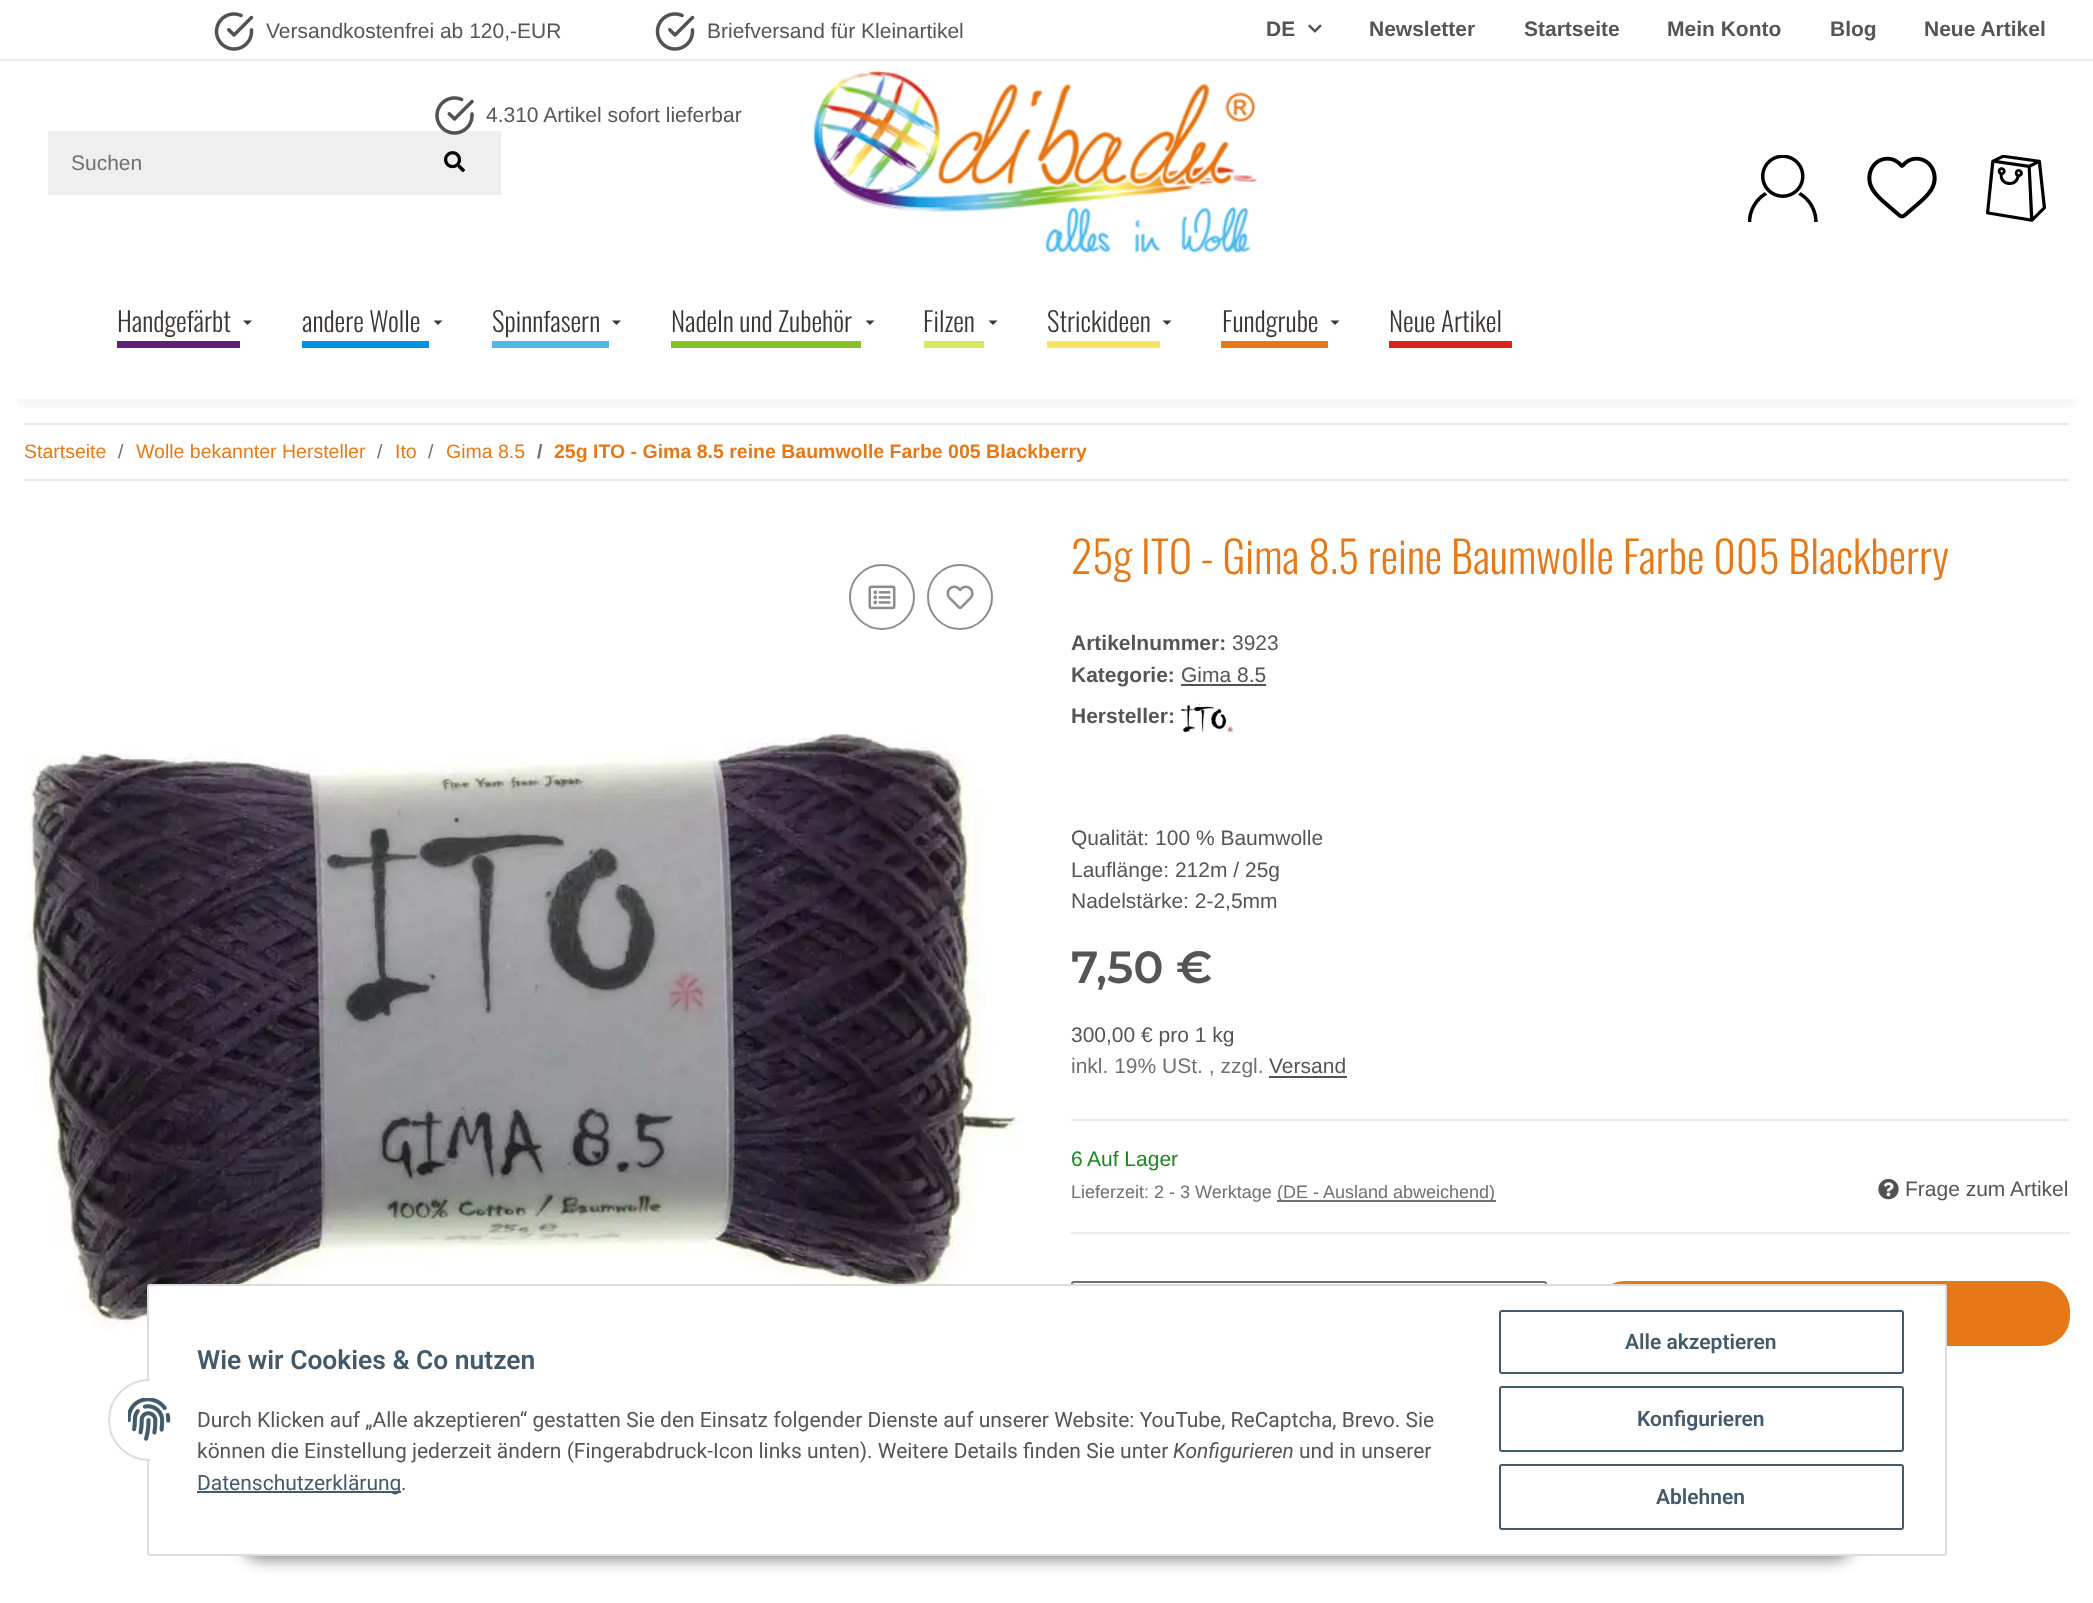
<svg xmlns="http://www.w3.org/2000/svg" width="2093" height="1603">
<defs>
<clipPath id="clip1"><rect x="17" y="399" width="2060" height="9"/></clipPath>
</defs>
<rect width="100%" height="100%" fill="#fff"/>
<rect y="59" width="2093" height="2" fill="#eee"/>
<image x="214" y="12" width="40" height="39" href="media/1.png"/>
<text x="266" y="38" style="font-family:Liberation Sans;font-size:21px;fill:#555">Versandkostenfrei ab 120,-EUR</text>
<image x="655" y="12" width="40" height="39" href="media/1.png"/>
<text x="707" y="38" style="font-family:Liberation Sans;font-size:21px;fill:#555">Briefversand für Kleinartikel</text>
<rect x="48" y="131" width="453" height="64" fill="#efefef"/>
<image x="435" y="96" width="39" height="39" href="media/2.png"/>
<text x="486" y="122" style="font-family:Liberation Sans;font-size:21px;fill:#555">4.310 Artikel sofort lieferbar</text>
<text x="1266" y="36" style="font-family:Liberation Sans;font-size:21px;font-weight:bold;fill:#555">DE</text>
<image x="1308" y="24" width="14" height="9" href="media/3.png"/>
<text x="1369" y="36" style="font-family:Liberation Sans;font-size:21px;font-weight:bold;fill:#555">Newsletter</text>
<text x="1524" y="36" style="font-family:Liberation Sans;font-size:21px;font-weight:bold;fill:#555">Startseite</text>
<text x="1667" y="36" style="font-family:Liberation Sans;font-size:21px;font-weight:bold;fill:#555">Mein Konto</text>
<text x="1830" y="36" style="font-family:Liberation Sans;font-size:21px;font-weight:bold;fill:#555">Blog</text>
<text x="1924" y="36" style="font-family:Liberation Sans;font-size:21px;font-weight:bold;fill:#555">Neue Artikel</text>
<text x="71" y="170" style="font-family:Liberation Sans;font-size:21px;fill:#707070">Suchen</text>
<image x="444" y="151" width="21" height="22" href="media/4.png"/>
<image x="812" y="70" width="445" height="184" href="media/5.png"/>
<image x="1748" y="155" width="70" height="67" href="media/6.png"/>
<image x="1867" y="156" width="70" height="63" href="media/7.png"/>
<image x="1986" y="155" width="60" height="67" href="media/8.png"/>
<rect x="24" y="423" width="2046" height="2" fill="#ebebeb"/>
<g clip-path="url(#clip1)">
<rect x="18" y="306" width="2058" height="99" fill="#0000000f" filter="blur(7px)"/>
</g>
<rect x="117" y="341" width="123" height="7" fill="#631f75"/>
<text x="117" y="332" style="font-family:Oswald;font-size:27px;font-weight:300;fill:#3c3733">Handgefärbt</text>
<path d="M243 320.5h9l-4.5 4.5z" fill="#3c3733"/>
<rect x="302" y="341" width="127" height="7" fill="#0093dd"/>
<text x="302" y="332" style="font-family:Oswald;font-size:27px;font-weight:300;fill:#3c3733">andere Wolle</text>
<path d="M433.5 320.5h9l-4.5 4.5z" fill="#3c3733"/>
<rect x="492" y="341" width="117" height="7" fill="#50b9e3"/>
<text x="492" y="332" style="font-family:Oswald;font-size:27px;font-weight:300;fill:#3c3733">Spinnfasern</text>
<path d="M612 320.5h9l-4.5 4.5z" fill="#3c3733"/>
<rect x="671" y="341" width="190" height="7" fill="#84c225"/>
<text x="671" y="332" style="font-family:Oswald;font-size:27px;font-weight:300;fill:#3c3733">Nadeln und Zubehör</text>
<path d="M865.5 320.5h9l-4.5 4.5z" fill="#3c3733"/>
<rect x="924" y="341" width="60" height="7" fill="#dae85d"/>
<text x="923" y="332" style="font-family:Oswald;font-size:27px;font-weight:300;fill:#3c3733">Filzen</text>
<path d="M988.5 320.5h9l-4.5 4.5z" fill="#3c3733"/>
<rect x="1047" y="341" width="113" height="7" fill="#fbe263"/>
<text x="1047" y="332" style="font-family:Oswald;font-size:27px;font-weight:300;fill:#3c3733">Strickideen</text>
<path d="M1162.5 320.5h9l-4.5 4.5z" fill="#3c3733"/>
<rect x="1221" y="341" width="107" height="7" fill="#e77817"/>
<text x="1222" y="332" style="font-family:Oswald;font-size:27px;font-weight:300;fill:#3c3733">Fundgrube</text>
<path d="M1330.5 320.5h9l-4.5 4.5z" fill="#3c3733"/>
<rect x="1389" y="341" width="123" height="7" fill="#da251d"/>
<text x="1389" y="332" style="font-family:Oswald;font-size:27px;font-weight:300;fill:#3c3733">Neue Artikel</text>
<rect x="24" y="479" width="2046" height="2" fill="#ebebeb"/>
<text x="24" y="458" style="font-family:Liberation Sans;font-size:19.5px;fill:#e77817">Startseite</text>
<text x="118" y="458" style="font-family:Liberation Sans;font-size:19.5px;fill:#707070">/</text>
<text x="136" y="458" style="font-family:Liberation Sans;font-size:19.5px;fill:#e77817">Wolle bekannter Hersteller</text>
<text x="377" y="458" style="font-family:Liberation Sans;font-size:19.5px;fill:#707070">/</text>
<text x="395" y="458" style="font-family:Liberation Sans;font-size:19.5px;fill:#e77817">Ito</text>
<text x="428" y="458" style="font-family:Liberation Sans;font-size:19.5px;fill:#707070">/</text>
<text x="446" y="458" style="font-family:Liberation Sans;font-size:19.5px;fill:#e77817">Gima 8.5</text>
<text x="537" y="458" style="font-family:Liberation Sans;font-size:19.5px;font-weight:bold;fill:#707070">/</text>
<text x="554" y="458" style="font-family:Liberation Sans;font-size:19.5px;font-weight:bold;fill:#e77817">25g ITO - Gima 8.5 reine Baumwolle Farbe 005 Blackberry</text>
<circle cx="882" cy="597" r="32" fill="none" stroke="#8d8d8d" stroke-width="2"/>
<image x="868" y="585" width="28" height="25" href="media/9.png"/>
<circle cx="960" cy="597" r="32" fill="none" stroke="#8d8d8d" stroke-width="2"/>
<image x="946" y="585" width="28" height="25" href="media/10.png"/>
<image x="24" y="732" width="999" height="598" href="media/11.png"/>
<text x="1071" y="574" style="font-family:Oswald;font-size:43.8px;font-weight:300;fill:#e77817">25g ITO - Gima 8.5 reine Baumwolle Farbe 005 Blackberry</text>
<text x="1071" y="650" style="font-family:Liberation Sans;font-size:21px;font-weight:bold;fill:#555">Artikelnummer:</text>
<text x="1232" y="650" style="font-family:Liberation Sans;font-size:21px;fill:#555">3923</text>
<text x="1071" y="682" style="font-family:Liberation Sans;font-size:21px;font-weight:bold;fill:#555">Kategorie:</text>
<text x="1181" y="682" style="font-family:Liberation Sans;font-size:21px;fill:#555">Gima 8.5</text>
<rect x="1181" y="684" width="85" height="2" fill="#525252"/>
<text x="1071" y="723" style="font-family:Liberation Sans;font-size:21px;font-weight:bold;fill:#555">Hersteller:</text>
<image x="1180" y="703" width="53" height="31" href="media/12.png"/>
<text x="1071" y="845" style="font-family:Liberation Sans;font-size:21px;fill:#555">Qualität: 100 % Baumwolle</text>
<text x="1071" y="877" style="font-family:Liberation Sans;font-size:21px;fill:#555">Lauflänge: 212m / 25g</text>
<text x="1071" y="908" style="font-family:Liberation Sans;font-size:21px;fill:#555">Nadelstärke: 2-2,5mm</text>
<text x="1071" y="983" style="font-family:Montserrat;font-size:45px;font-weight:600;fill:#555">7,50 €</text>
<text x="1071" y="1042" style="font-family:Liberation Sans;font-size:21px;fill:#555">300,00 € pro 1 kg</text>
<text x="1071" y="1073" style="font-family:Liberation Sans;font-size:21px;fill:#707070">inkl. 19% USt. , zzgl.</text>
<text x="1269" y="1073" style="font-family:Liberation Sans;font-size:21px;fill:#555">Versand</text>
<rect x="1269" y="1076" width="78" height="2" fill="#525252"/>
<rect x="1071" y="1119" width="999" height="2" fill="#ebebeb"/>
<rect x="1071" y="1232" width="999" height="2" fill="#ebebeb"/>
<text x="1071" y="1166" style="font-family:Liberation Sans;font-size:21px;fill:#1c871e">6</text>
<text x="1087" y="1166" style="font-family:Liberation Sans;font-size:21px;fill:#1c871e">Auf Lager</text>
<text x="1071" y="1198" style="font-family:Liberation Sans;font-size:18px;fill:#707070">Lieferzeit: 2 - 3 Werktage</text>
<rect x="1277" y="1200" width="219" height="2" fill="#707070"/>
<text x="1277" y="1198" style="font-family:Liberation Sans;font-size:18px;fill:#707070">(DE - Ausland abweichend)</text>
<image x="1878" y="1179" width="21" height="21" href="media/13.png"/>
<text x="1905" y="1196" style="font-family:Liberation Sans;font-size:21px;fill:#555">Frage zum Artikel</text>
<rect x="1072" y="1282" width="474" height="66" rx="2" fill="none" stroke="#707070" stroke-width="2"/>
<rect x="1596" y="1282" width="473" height="63" rx="29" fill="#e77817" stroke="#e77817" stroke-width="2"/>
<rect x="239" y="1512" width="1617" height="48" rx="24" fill="#00000073" filter="blur(7.5px)"/>
<rect x="148" y="1285" width="1798" height="270" rx="2" fill="#fff" stroke="#ddd" stroke-width="2"/>
<rect x="109" y="1380" width="81" height="80" rx="40" fill="#fff" stroke="#ddd" stroke-width="2"/>
<rect x="150" y="1379" width="41" height="82" fill="#fff"/>
<image x="128" y="1398" width="43" height="43" href="media/14.png"/>
<text x="197" y="1369" style="font-family:Roboto;font-size:26.4px;font-weight:600;fill:#435a6b">Wie wir Cookies &amp; Co nutzen</text>
<text x="197" y="1427" style="font-family:Roboto;font-size:21px;fill:#555">Durch Klicken auf „Alle akzeptieren“ gestatten Sie den Einsatz folgender Dienste auf unserer Website: YouTube, ReCaptcha, Brevo. Sie</text>
<text x="197" y="1458" style="font-family:Roboto;font-size:21px;fill:#555">können die Einstellung jederzeit ändern (Fingerabdruck-Icon links unten). Weitere Details finden Sie unter</text>
<text x="1173" y="1458" style="font-family:Roboto;font-size:21px;font-style:italic;fill:#555">Konfigurieren</text>
<text x="1299" y="1458" style="font-family:Roboto;font-size:21px;fill:#555">und in unserer</text>
<rect x="197" y="1491" width="204" height="2" fill="#435a6b"/>
<text x="197" y="1490" style="font-family:Roboto;font-size:21px;fill:#435a6b">Datenschutzerklärung</text>
<text x="401" y="1490" style="font-family:Roboto;font-size:21px;fill:#555">.</text>
<rect x="1500" y="1311" width="403" height="62" rx="2" fill="none" stroke="#435a6b" stroke-width="2"/>
<text x="1625" y="1349" style="font-family:Roboto;font-size:21px;font-weight:600;fill:#435a6b">Alle akzeptieren</text>
<rect x="1500" y="1387" width="403" height="64" rx="2" fill="none" stroke="#435a6b" stroke-width="2"/>
<text x="1637" y="1426" style="font-family:Roboto;font-size:21px;font-weight:600;fill:#435a6b">Konfigurieren</text>
<rect x="1500" y="1465" width="403" height="64" rx="2" fill="none" stroke="#435a6b" stroke-width="2"/>
<text x="1656" y="1504" style="font-family:Roboto;font-size:21px;font-weight:600;fill:#435a6b">Ablehnen</text>
</svg>
